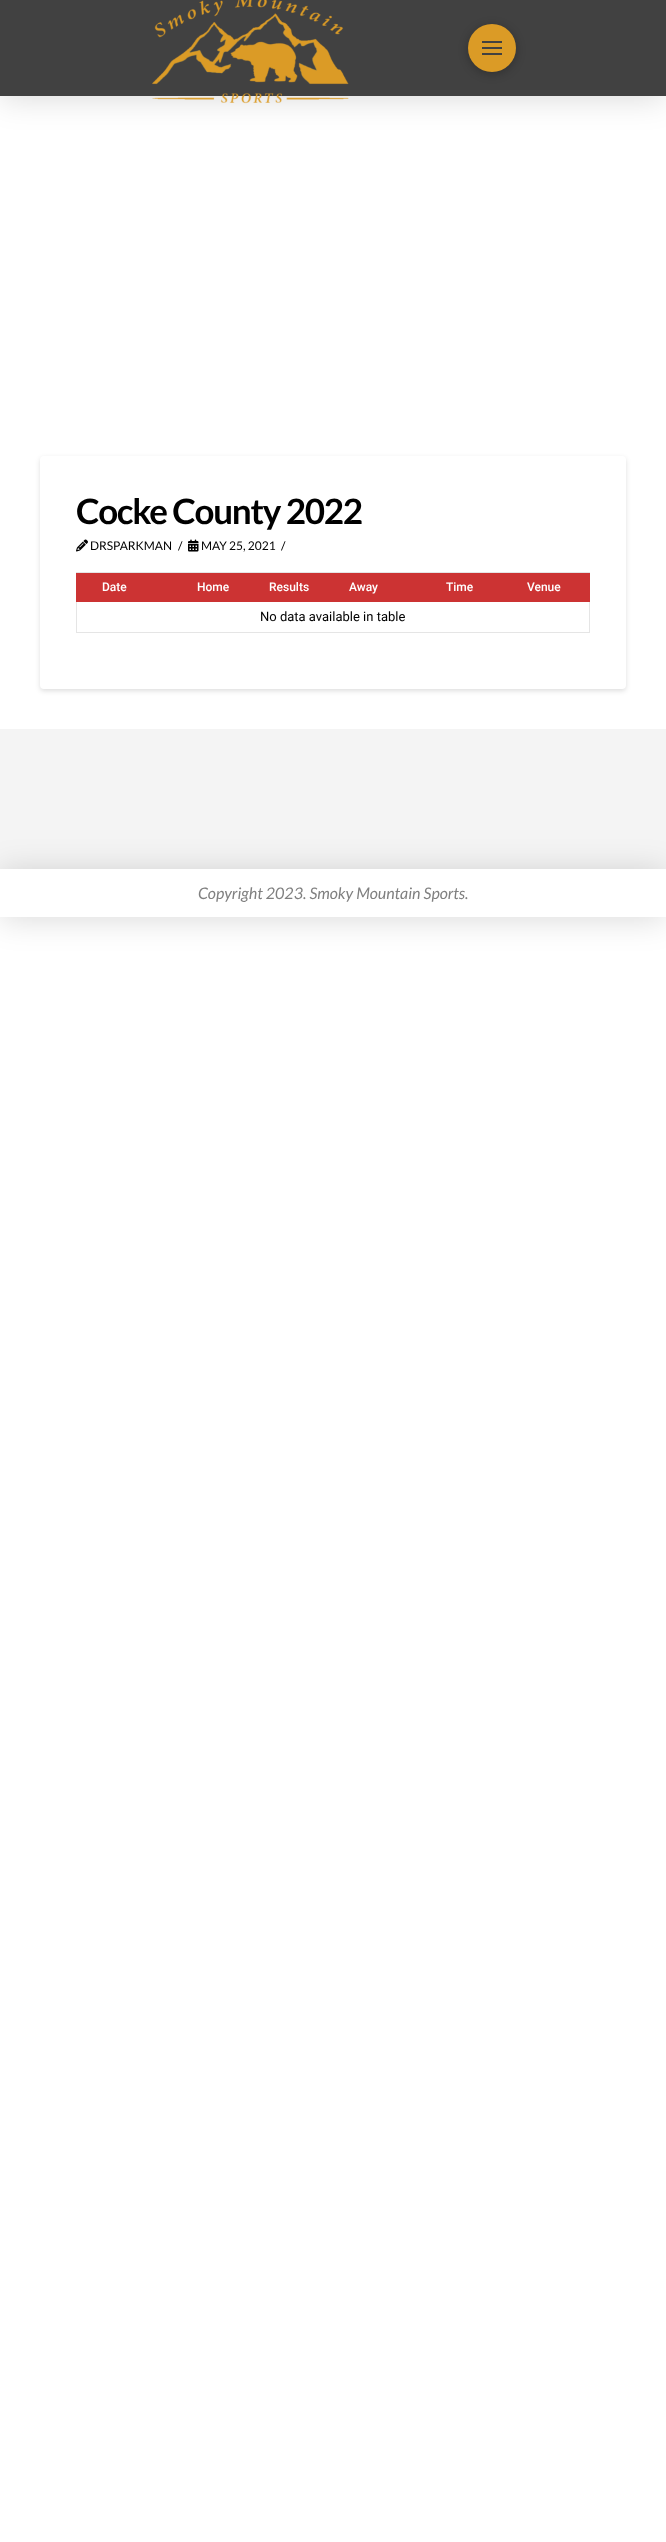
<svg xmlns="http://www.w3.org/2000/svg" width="666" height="2542">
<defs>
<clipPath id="clip1"><path d="M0 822h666v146h-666zm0 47h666v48h-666z" clip-rule="evenodd"/></clipPath>
</defs>
<rect width="100%" height="100%" fill="#fff"/>
<rect y="2" width="666" height="96" fill="#00000026" filter="blur(16px)"/>
<rect width="666" height="96" fill="#414141"/>
<image x="152" y="0" width="197" height="104" href="media/1.png"/>
<rect x="468" y="26" width="48" height="48" rx="24" fill="#00000040" filter="blur(5px)"/>
<circle cx="492" cy="48" r="24" fill="#db9b26"/>
<rect x="482" y="41" width="20" height="2" fill="#414141"/>
<rect x="482" y="47" width="20" height="2" fill="#414141"/>
<rect x="482" y="53" width="20" height="2" fill="#414141"/>
<rect x="40" y="458" width="586" height="233" rx="4" fill="#00000021" filter="blur(2.5px)"/>
<rect x="40" y="456" width="586" height="233" rx="4" fill="#fff"/>
<text x="76" y="524" style="font-family:Lato;font-size:35px;font-weight:bold;letter-spacing:-1.25px;fill:#000">Cocke County 2022</text>
<image x="76" y="539" width="12" height="13" href="media/2.png"/>
<text x="90" y="550" style="font-family:Lato;font-size:12px;fill:#000">DRSPARKMAN</text>
<text x="178" y="550" style="font-family:Lato;font-size:12px;fill:#000">/</text>
<image x="188" y="539" width="11" height="13" href="media/3.png"/>
<text x="201" y="550" style="font-family:Lato;font-size:12px;fill:#000">MAY 25, 2021</text>
<text x="281" y="550" style="font-family:Lato;font-size:12px;fill:#000">/</text>
<rect x="76" y="572" width="514" height="1" fill="#e5e5e5"/>
<rect x="589" y="572" width="1" height="61" fill="#e5e5e5"/>
<rect x="76" y="632" width="514" height="1" fill="#e5e5e5"/>
<rect x="76" y="572" width="1" height="61" fill="#e5e5e5"/>
<rect x="76" y="573" width="514" height="29" fill="#c33"/>
<text x="102" y="591" style="font-family:Roboto;font-size:12px;font-weight:500;fill:#fff">Date</text>
<text x="197" y="591" style="font-family:Roboto;font-size:12px;font-weight:500;fill:#fff">Home</text>
<text x="269" y="591" style="font-family:Roboto;font-size:12px;font-weight:500;fill:#fff">Results</text>
<text x="349" y="591" style="font-family:Roboto;font-size:12px;font-weight:500;fill:#fff">Away</text>
<text x="446" y="591" style="font-family:Roboto;font-size:12px;font-weight:500;fill:#fff">Time</text>
<text x="527" y="591" style="font-family:Roboto;font-size:12px;font-weight:500;fill:#fff">Venue</text>
<text x="260" y="621" style="font-family:Roboto;font-size:13px;fill:#000">No data available in table</text>
<rect y="729" width="666" height="140" fill="#f4f4f4"/>
<g clip-path="url(#clip1)">
<rect y="871" width="666" height="48" fill="#00000026" filter="blur(16px)"/>
</g>
<text x="198" y="899" style="font-family:Lato;font-size:16px;font-style:italic;fill:#808080">Copyright 2023. Smoky Mountain Sports.</text>
</svg>
